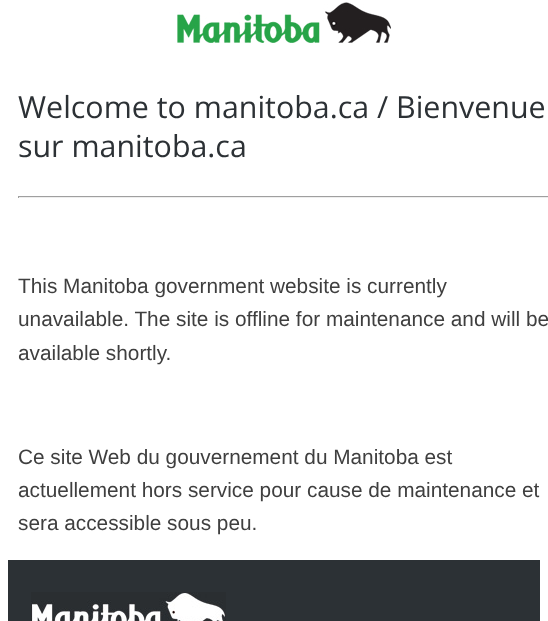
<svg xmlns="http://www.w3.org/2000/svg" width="548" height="621">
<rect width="100%" height="100%" fill="#fff"/>
<image x="177" y="2" width="214" height="41" href="media/1.png"/>
<text x="18" y="118" style="font-family:Open Sans;font-size:30.4px;fill:#2c3135">Welcome to manitoba.ca / Bienvenue</text>
<text x="18" y="157" style="font-family:Open Sans;font-size:30.4px;fill:#2c3135">sur manitoba.ca</text>
<rect x="18" y="196" width="530" height="1" fill="#9f9f9f"/>
<rect x="18" y="197" width="530" height="1" fill="#eee"/>
<rect x="18" y="196" width="1" height="2" fill="#9f9f9f"/>
<text x="18" y="293" style="font-family:Liberation Sans;font-size:20.8px;fill:#3f3f3f">This Manitoba government website is currently</text>
<text x="18" y="326" style="font-family:Liberation Sans;font-size:20.8px;fill:#3f3f3f">unavailable. The site is offline for maintenance and will be</text>
<text x="18" y="360" style="font-family:Liberation Sans;font-size:20.8px;fill:#3f3f3f">available shortly.</text>
<text x="18" y="464" style="font-family:Liberation Sans;font-size:20.8px;fill:#3f3f3f">Ce site Web du gouvernement du Manitoba est</text>
<text x="18" y="497" style="font-family:Liberation Sans;font-size:20.8px;fill:#3f3f3f">actuellement hors service pour cause de maintenance et</text>
<text x="18" y="530" style="font-family:Liberation Sans;font-size:20.8px;fill:#3f3f3f">sera accessible sous peu.</text>
<rect x="8" y="560" width="532" height="61" fill="#2c3135"/>
<image x="31" y="592" width="195" height="29" href="media/2.png"/>
</svg>
